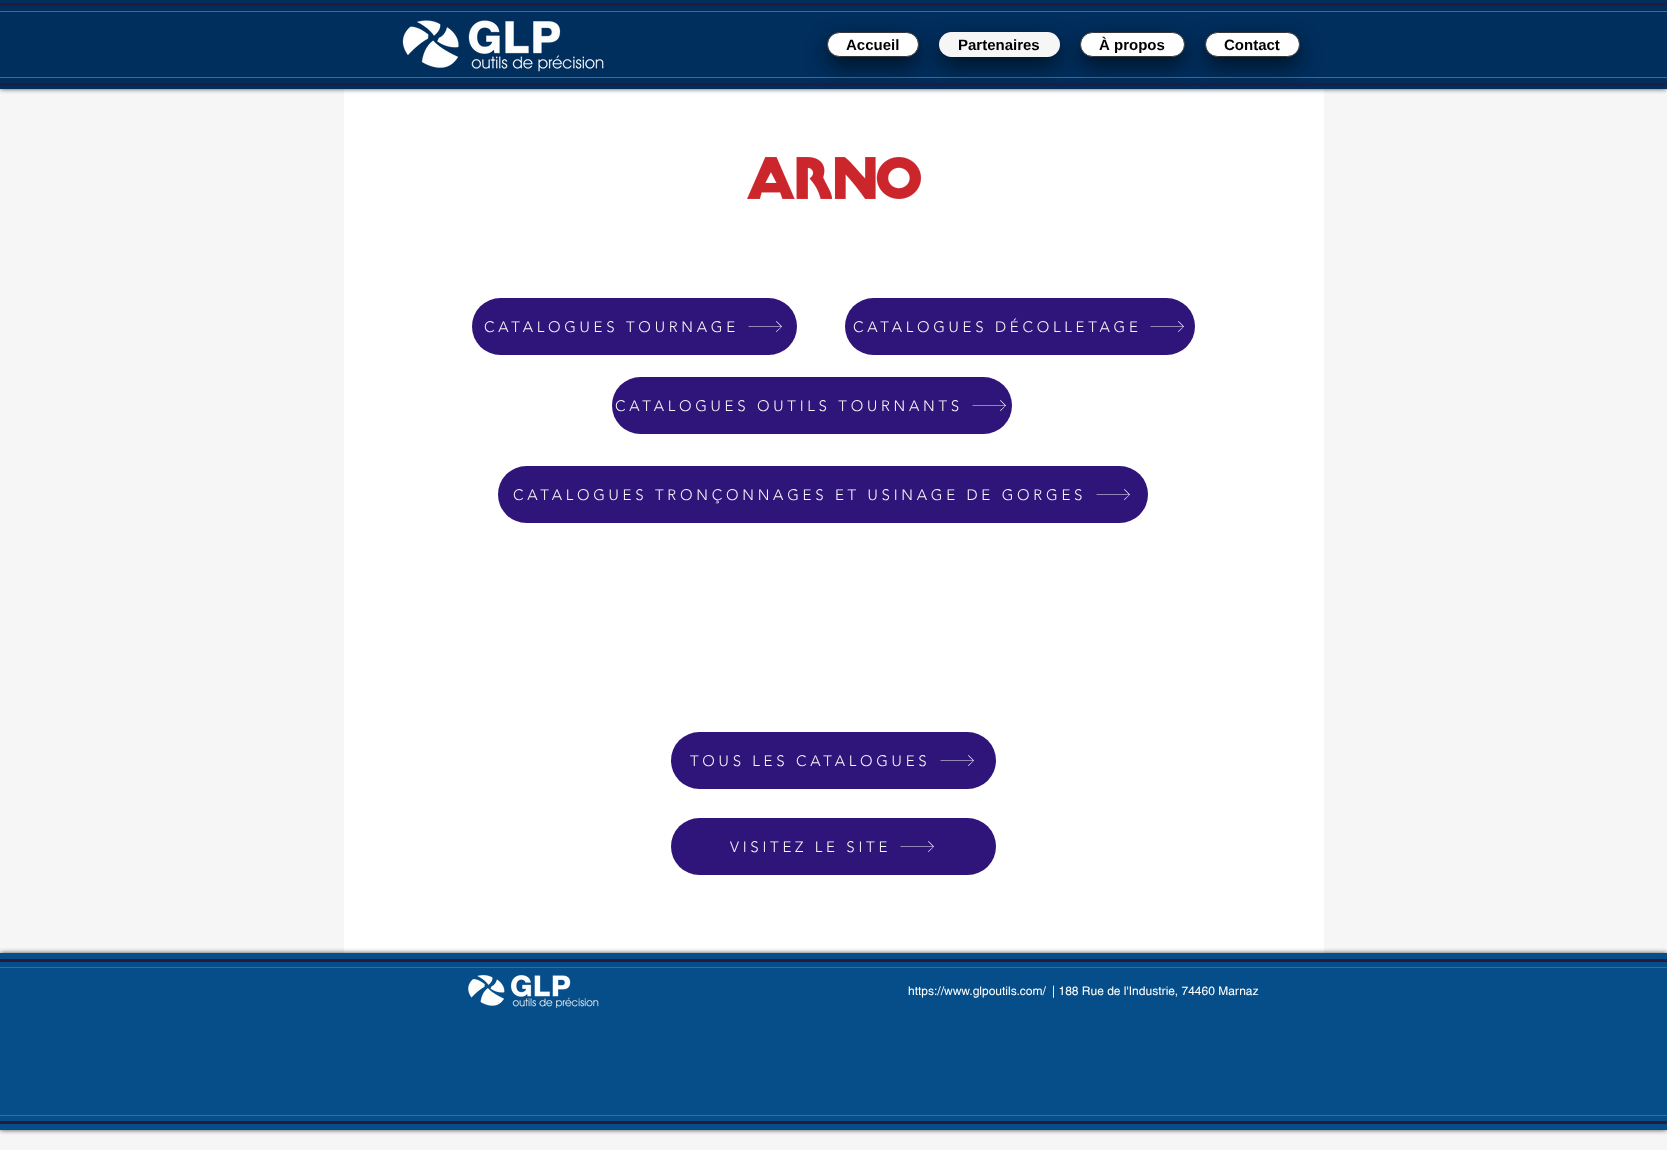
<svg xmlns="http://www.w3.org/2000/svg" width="1667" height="1150">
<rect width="100%" height="100%" fill="#f6f6f6"/>
<rect x="344" y="89" width="980" height="864" fill="#fff"/>
<rect width="1667" height="89" fill="#000000b3" filter="blur(2.5px)"/>
<rect width="1667" height="89" fill="#002e5d"/>
<rect y="3" width="1667" height="3" fill="#281a39"/>
<rect y="83" width="1667" height="3" fill="#281a39"/>
<rect y="11" width="1667" height="1" fill="#626262"/>
<rect y="77" width="1667" height="1" fill="#626262"/>
<image x="402" y="20" width="202" height="52" href="media/1.png"/>
<rect x="827" y="41" width="92" height="25" rx="12.5" fill="#00000099" filter="blur(10.5px)"/>
<rect x="827.5" y="32.5" width="91" height="24" rx="12" fill="#fff" stroke="#383838"/>
<text x="846" y="50" style="font-family:Liberation Sans;font-size:15px;font-weight:bold;fill:#000">Accueil</text>
<rect x="939" y="41" width="121" height="25" rx="12.5" fill="#00000099" filter="blur(10.5px)"/>
<rect x="939" y="32" width="121" height="25" rx="12.5" fill="#f6f6f6"/>
<text x="958" y="50" style="font-family:Liberation Sans;font-size:15px;font-weight:bold;fill:#000">Partenaires</text>
<rect x="1080" y="41" width="105" height="25" rx="12.5" fill="#00000099" filter="blur(10.5px)"/>
<rect x="1080.5" y="32.5" width="104" height="24" rx="12" fill="#fff" stroke="#383838"/>
<text x="1099" y="50" style="font-family:Liberation Sans;font-size:15px;font-weight:bold;fill:#000">À propos</text>
<rect x="1205" y="41" width="95" height="25" rx="12.5" fill="#00000099" filter="blur(10.5px)"/>
<rect x="1205.5" y="32.5" width="94" height="24" rx="12" fill="#fff" stroke="#383838"/>
<text x="1224" y="50" style="font-family:Liberation Sans;font-size:15px;font-weight:bold;fill:#000">Contact</text>
<image x="747" y="157" width="174" height="42" href="media/2.png"/>
<rect x="472" y="298" width="325" height="57" rx="28.5" fill="#2f157a"/>
<text x="484" y="332" style="font-family:'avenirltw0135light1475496';font-size:15px;font-weight:300;letter-spacing:3.75px;fill:#f6f6f6">CATALOGUES TOURNAGE</text>
<path d="M776.5 321l-.5 .5l5 5h-32.5v.5h32.5l-5 4.5l.5 .5l5.5-5.5z" fill="#f6f6f6"/>
<rect x="845" y="298" width="350" height="57" rx="28.5" fill="#2f157a"/>
<text x="853" y="332" style="font-family:'avenirltw0135light1475496';font-size:15px;font-weight:300;letter-spacing:3.75px;fill:#f6f6f6">CATALOGUES DÉCOLLETAGE</text>
<path d="M1178.5 321l-.5 .5l5 5h-32.5v.5h32.5l-5 4.5l.5 .5l5.5-5.5z" fill="#f6f6f6"/>
<rect x="612" y="377" width="400" height="57" rx="28.5" fill="#2f157a"/>
<text x="615" y="411" style="font-family:'avenirltw0135light1475496';font-size:15px;font-weight:300;letter-spacing:3.75px;fill:#f6f6f6">CATALOGUES OUTILS TOURNANTS</text>
<path d="M1000.5 400l-.5 .5l5 5h-32.5v.5h32.5l-5 4.5l.5 .5l5.5-5.5z" fill="#f6f6f6"/>
<rect x="498" y="466" width="650" height="57" rx="28.5" fill="#2f157a"/>
<text x="513" y="500" style="font-family:'avenirltw0135light1475496';font-size:15px;font-weight:300;letter-spacing:3.75px;fill:#f6f6f6">CATALOGUES TRONÇONNAGES ET USINAGE DE GORGES</text>
<path d="M1124.5 489l-.5 .5l5 5h-32.5v.5h32.5l-5 4.5l.5 .5l5.5-5.5z" fill="#f6f6f6"/>
<rect x="671" y="732" width="325" height="57" rx="28.5" fill="#2f157a"/>
<text x="690" y="766" style="font-family:'avenirltw0135light1475496';font-size:15px;font-weight:300;letter-spacing:3.75px;fill:#f6f6f6">TOUS LES CATALOGUES</text>
<path d="M968.5 755l-.5 .5l5 5h-32.5v.5h32.5l-5 4.5l.5 .5l5.5-5.5z" fill="#f6f6f6"/>
<rect x="671" y="818" width="325" height="57" rx="28.5" fill="#2f157a"/>
<text x="730" y="852" style="font-family:'avenirltw0135light1475496';font-size:15px;font-weight:300;letter-spacing:3.75px;fill:#f6f6f6">VISITEZ LE SITE</text>
<path d="M928.5 841l-.5 .5l5 5h-32.5v.5h32.5l-5 4.5l.5 .5l5.5-5.5z" fill="#f6f6f6"/>
<rect y="953" width="1667" height="177" fill="#000000b3" filter="blur(2.5px)"/>
<rect y="953" width="1667" height="177" fill="#064e89"/>
<rect y="959" width="1667" height="3" fill="#281a39"/>
<rect y="1121" width="1667" height="3" fill="#281a39"/>
<rect y="967" width="1667" height="1" fill="#626262"/>
<rect y="1115" width="1667" height="1" fill="#626262"/>
<image x="468" y="974" width="131" height="35" href="media/3.png"/>
<text x="908" y="995" style="font-family:helvetica;font-size:12px;fill:#fff">https://www.glpoutils.com/</text>
<text x="1052" y="995" style="font-family:helvetica;font-size:12px;fill:#fff">| 188 Rue de l'Industrie, 74460 Marnaz</text>
</svg>
